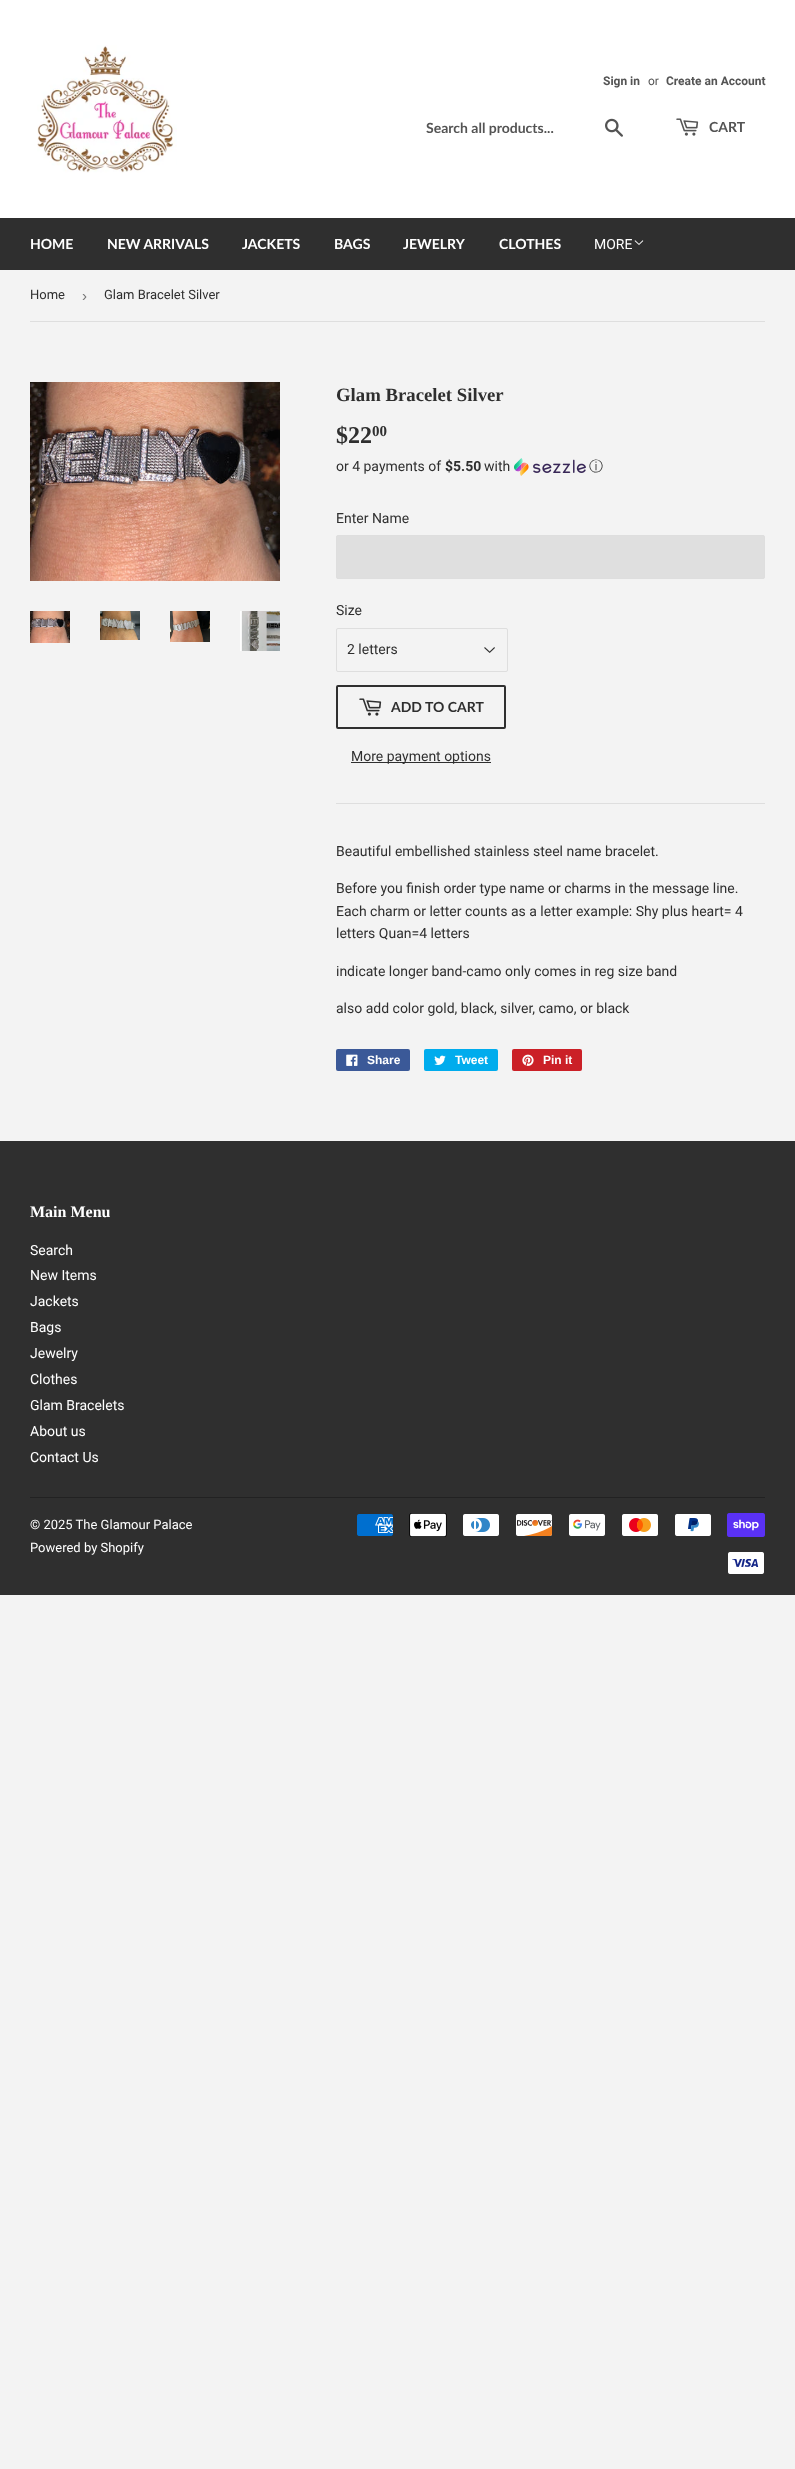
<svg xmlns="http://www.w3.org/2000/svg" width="795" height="2469">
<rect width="100%" height="100%" fill="#f3f3f3"/>
<rect width="795" height="218" fill="#fff"/>
<image x="37" y="45" width="140" height="128" href="media/1.png"/>
<text x="603" y="85" style="font-family:Roboto;font-size:12px;font-weight:bold;fill:#545454">Sign in</text>
<text x="648" y="85" style="font-family:Roboto;font-size:12px;fill:#545454">or</text>
<text x="666" y="85" style="font-family:Roboto;font-size:12px;font-weight:bold;fill:#545454">Create an Account</text>
<text x="426" y="133" style="font-family:Lato;font-size:14px;font-weight:bold;fill:#545454">Search all products...</text>
<image x="605" y="118" width="18" height="19" href="media/2.png"/>
<image x="676" y="118" width="23" height="18" href="media/3.png"/>
<text x="709" y="132" style="font-family:Lato;font-size:14px;font-weight:bold;fill:#545454">CART</text>
<rect y="218" width="795" height="52" fill="#2f2f2f"/>
<text x="30" y="249" style="font-family:Lato;font-size:14px;font-weight:bold;fill:#fff">HOME</text>
<text x="107" y="249" style="font-family:Lato;font-size:14px;font-weight:bold;fill:#fff">NEW ARRIVALS</text>
<text x="242" y="249" style="font-family:Lato;font-size:14px;font-weight:bold;fill:#fff">JACKETS</text>
<text x="334" y="249" style="font-family:Lato;font-size:14px;font-weight:bold;fill:#fff">BAGS</text>
<text x="403" y="249" style="font-family:Lato;font-size:14px;font-weight:bold;fill:#fff">JEWELRY</text>
<text x="499" y="249" style="font-family:Lato;font-size:14px;font-weight:bold;fill:#fff">CLOTHES</text>
<text x="594" y="249" style="font-family:Roboto;font-size:14px;fill:#fff">MORE</text>
<image x="634" y="240" width="10" height="5" href="media/4.png"/>
<rect x="30" y="321" width="735" height="1" fill="#dedede"/>
<text x="30" y="299" style="font-family:Roboto;font-size:13px;fill:#2f2f2f">Home</text>
<text x="82" y="301" style="font-family:Liberation Sans;font-size:15px;fill:#767676">›</text>
<text x="104" y="299" style="font-family:Roboto;font-size:13px;fill:#2f2f2f">Glam Bracelet Silver</text>
<image x="30" y="382" width="250" height="199" href="media/5.png"/>
<image x="30" y="611" width="40" height="32" href="media/6.png"/>
<image x="100" y="611" width="40" height="29" href="media/7.png"/>
<image x="170" y="611" width="40" height="31" href="media/8.png"/>
<image x="240" y="611" width="40" height="40" href="media/9.png"/>
<text x="336" y="401" style="font-family:Liberation Serif;font-size:18.75px;font-weight:bold;fill:#2f2f2f">Glam Bracelet Silver</text>
<text x="336" y="443" style="font-family:Liberation Serif;font-size:24px;font-weight:bold;fill:#2f2f2f">$22</text>
<text x="372" y="436" style="font-family:Liberation Serif;font-size:15px;font-weight:bold;fill:#2f2f2f">00</text>
<text x="336" y="471" style="font-family:Roboto;font-size:14px;fill:#2f2f2f">or 4 payments of</text>
<text x="445" y="471" style="font-family:Roboto;font-size:14px;font-weight:bold;fill:#2f2f2f">$5.50</text>
<text x="484" y="471" style="font-family:Roboto;font-size:14px;fill:#2f2f2f">with</text>
<image x="514" y="458" width="72" height="18" href="media/10.png"/>
<text x="589" y="471" style="font-family:WenQuanYi Zen Hei;font-size:14px;font-weight:500;fill:#2f2f2f">ⓘ</text>
<text x="336" y="523" style="font-family:Roboto;font-size:14px;fill:#2f2f2f">Enter Name</text>
<rect x="336.5" y="535.5" width="428" height="43" rx="1.5" fill="#dfdfdf" stroke="#dedede"/>
<text x="336" y="615" style="font-family:Roboto;font-size:14px;fill:#2f2f2f">Size</text>
<image x="484" y="647" width="11" height="6" href="media/11.png"/>
<rect x="336.5" y="628.5" width="171" height="43" rx="1.5" fill="none" stroke="#dedede"/>
<text x="347" y="654" style="font-family:Roboto;font-size:14px;fill:#2f2f2f">2 letters</text>
<rect x="337" y="686" width="168" height="42" rx="1" fill="none" stroke="#2f2f2f" stroke-width="2"/>
<image x="359" y="698" width="23" height="18" href="media/12.png"/>
<text x="391" y="712" style="font-family:Lato;font-size:14px;font-weight:bold;fill:#2f2f2f">ADD TO CART</text>
<rect x="351" y="762" width="140" height="1" fill="#2f2f2f"/>
<text x="351" y="761" style="font-family:Roboto;font-size:14px;fill:#2f2f2f">More payment options</text>
<rect x="336" y="803" width="429" height="1" fill="#dedede"/>
<text x="336" y="856" style="font-family:Roboto;font-size:14px;fill:#2f2f2f">Beautiful embellished stainless steel name bracelet.</text>
<text x="336" y="893" style="font-family:Roboto;font-size:14px;fill:#2f2f2f">Before you finish order type name or charms in the message line.</text>
<text x="336" y="916" style="font-family:Roboto;font-size:14px;fill:#2f2f2f">Each charm or letter counts as a letter example: Shy plus heart= 4</text>
<text x="336" y="938" style="font-family:Roboto;font-size:14px;fill:#2f2f2f">letters Quan=4 letters</text>
<text x="336" y="976" style="font-family:Roboto;font-size:14px;fill:#2f2f2f">indicate longer band-camo only comes in reg size band</text>
<text x="336" y="1013" style="font-family:Roboto;font-size:14px;fill:#2f2f2f">also add color gold, black, silver, camo, or black</text>
<rect x="336" y="1049" width="74" height="22" rx="2" fill="#3b5998"/>
<image x="346" y="1054" width="12" height="12" href="media/13.png"/>
<text x="367" y="1064" style="font-family:Liberation Sans;font-size:12px;font-weight:bold;fill:#fff">Share</text>
<rect x="424" y="1049" width="74" height="22" rx="2" fill="#00aced"/>
<image x="434" y="1055" width="12" height="10" href="media/14.png"/>
<text x="455" y="1064" style="font-family:Liberation Sans;font-size:12px;font-weight:bold;fill:#fff">Tweet</text>
<rect x="512" y="1049" width="70" height="22" rx="2" fill="#cb2027"/>
<image x="522" y="1054" width="12" height="12" href="media/15.png"/>
<text x="543" y="1064" style="font-family:Liberation Sans;font-size:12px;font-weight:bold;fill:#fff">Pin it</text>
<rect y="1141" width="795" height="454" fill="#2f2f2f"/>
<text x="30" y="1217" style="font-family:Liberation Serif;font-size:16px;font-weight:bold;fill:#fff">Main Menu</text>
<text x="30" y="1255" style="font-family:Roboto;font-size:14px;fill:#fff">Search</text>
<text x="30" y="1280" style="font-family:Roboto;font-size:14px;fill:#fff">New Items</text>
<text x="30" y="1306" style="font-family:Roboto;font-size:14px;fill:#fff">Jackets</text>
<text x="30" y="1332" style="font-family:Roboto;font-size:14px;fill:#fff">Bags</text>
<text x="30" y="1358" style="font-family:Roboto;font-size:14px;fill:#fff">Jewelry</text>
<text x="30" y="1384" style="font-family:Roboto;font-size:14px;fill:#fff">Clothes</text>
<text x="30" y="1410" style="font-family:Roboto;font-size:14px;fill:#fff">Glam Bracelets</text>
<text x="30" y="1436" style="font-family:Roboto;font-size:14px;fill:#fff">About us</text>
<text x="30" y="1462" style="font-family:Roboto;font-size:14px;fill:#fff">Contact Us</text>
<rect x="30" y="1497" width="735" height="1" fill="#222"/>
<text x="30" y="1529" style="font-family:Roboto;font-size:13px;fill:#fff">© 2025 The Glamour Palace</text>
<text x="30" y="1552" style="font-family:Roboto;font-size:13px;fill:#fff">Powered by Shopify</text>
<image x="357" y="1514" width="36" height="22" href="media/16.png"/>
<image x="409" y="1513" width="38" height="24" href="media/17.png"/>
<image x="463" y="1514" width="36" height="22" href="media/18.png"/>
<image x="516" y="1514" width="36" height="22" href="media/19.png"/>
<image x="569" y="1514" width="36" height="22" href="media/20.png"/>
<image x="622" y="1514" width="36" height="22" href="media/21.png"/>
<image x="675" y="1514" width="36" height="22" href="media/22.png"/>
<image x="727" y="1513" width="38" height="24" href="media/23.png"/>
<image x="728" y="1552" width="36" height="22" href="media/24.png"/>
</svg>
